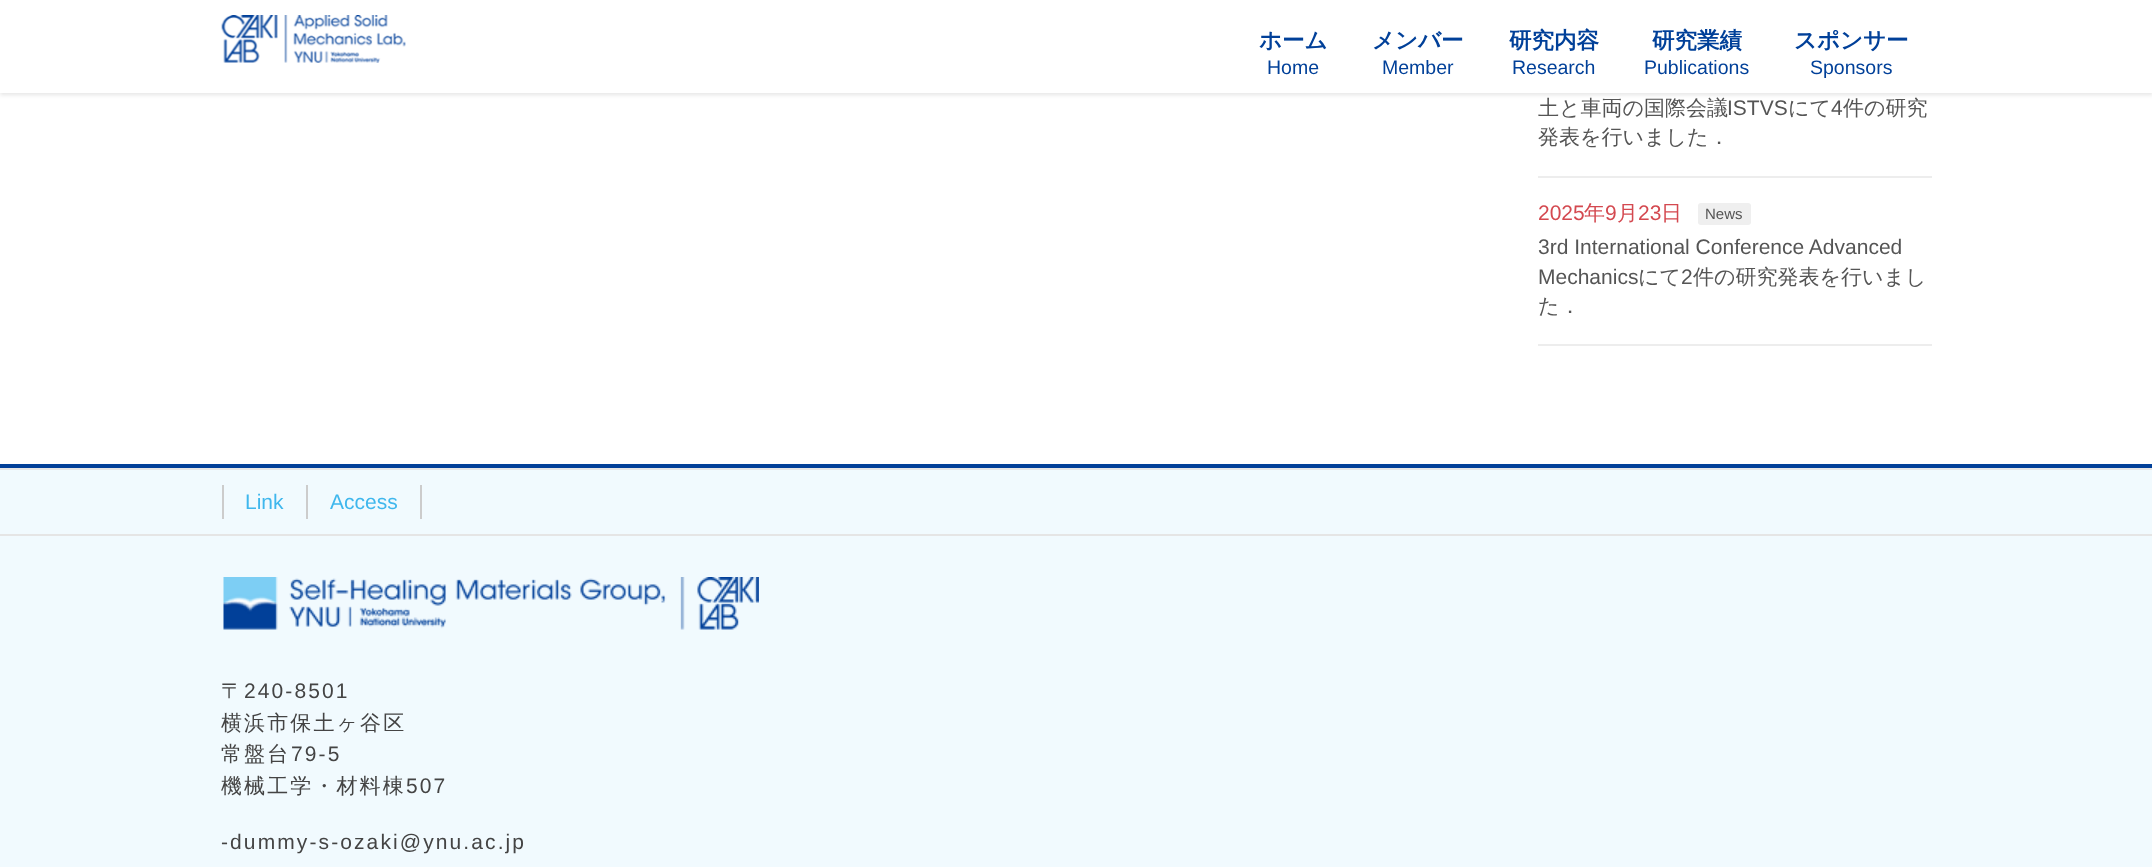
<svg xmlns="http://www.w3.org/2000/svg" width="2152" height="867">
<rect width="100%" height="100%" fill="#fff"/>
<rect y="2" width="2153" height="93" fill="#0000001a" filter="blur(2px)"/>
<rect width="2152" height="93" fill="#fff"/>
<image x="221" y="15" width="185" height="48" href="media/1.png"/>
<text x="1259" y="48" style="font-family:WenQuanYi Zen Hei;font-size:22.5px;font-weight:bold;fill:#014099">ホーム</text>
<text x="1267" y="74" style="font-family:Liberation Sans;font-size:19.5px;fill:#014099">Home</text>
<text x="1372" y="48" style="font-family:WenQuanYi Zen Hei;font-size:22.5px;font-weight:bold;fill:#014099">メンバー</text>
<text x="1382" y="74" style="font-family:Liberation Sans;font-size:19.5px;fill:#014099">Member</text>
<text x="1509" y="48" style="font-family:WenQuanYi Zen Hei;font-size:22.5px;font-weight:bold;fill:#014099">研究内容</text>
<text x="1512" y="74" style="font-family:Liberation Sans;font-size:19.5px;fill:#014099">Research</text>
<text x="1652" y="48" style="font-family:WenQuanYi Zen Hei;font-size:22.5px;font-weight:bold;fill:#014099">研究業績</text>
<text x="1644" y="74" style="font-family:Liberation Sans;font-size:19.5px;fill:#014099">Publications</text>
<text x="1794" y="48" style="font-family:WenQuanYi Zen Hei;font-size:22.5px;font-weight:bold;fill:#014099">スポンサー</text>
<text x="1810" y="74" style="font-family:Liberation Sans;font-size:19.5px;fill:#014099">Sponsors</text>
<rect x="1538" y="176" width="394" height="2" fill="#ededed"/>
<text x="1538" y="115" style="font-family:WenQuanYi Zen Hei;font-size:21px;font-weight:500;fill:#555">土と車両の国際会議</text>
<text x="1727" y="115" style="font-family:Liberation Sans;font-size:21px;fill:#555">ISTVS</text>
<text x="1788" y="115" style="font-family:WenQuanYi Zen Hei;font-size:21px;font-weight:500;fill:#555">にて</text>
<text x="1831" y="115" style="font-family:Liberation Sans;font-size:21px;fill:#555">4</text>
<text x="1843" y="115" style="font-family:WenQuanYi Zen Hei;font-size:21px;font-weight:500;fill:#555">件の研究</text>
<text x="1538" y="144" style="font-family:WenQuanYi Zen Hei;font-size:21px;font-weight:500;fill:#555">発表を行いました．</text>
<rect x="1538" y="344" width="394" height="2" fill="#ededed"/>
<text x="1538" y="220" style="font-family:Liberation Sans;font-size:21px;fill:#d44950">2025</text>
<text x="1584" y="220" style="font-family:WenQuanYi Zen Hei;font-size:21px;font-weight:500;fill:#d44950">年</text>
<text x="1605" y="220" style="font-family:Liberation Sans;font-size:21px;fill:#d44950">9</text>
<text x="1617" y="220" style="font-family:WenQuanYi Zen Hei;font-size:21px;font-weight:500;fill:#d44950">月</text>
<text x="1638" y="220" style="font-family:Liberation Sans;font-size:21px;fill:#d44950">23</text>
<text x="1661" y="220" style="font-family:WenQuanYi Zen Hei;font-size:21px;font-weight:500;fill:#d44950">日</text>
<rect x="1698" y="203" width="53" height="22" rx="3" fill="#efefef"/>
<text x="1705" y="219" style="font-family:Liberation Sans;font-size:15px;fill:#555">News</text>
<text x="1538" y="254" style="font-family:Liberation Sans;font-size:21px;fill:#555">3rd International Conference Advanced</text>
<text x="1538" y="284" style="font-family:Liberation Sans;font-size:21px;fill:#555">Mechanics</text>
<text x="1638" y="284" style="font-family:WenQuanYi Zen Hei;font-size:21px;font-weight:500;fill:#555">にて</text>
<text x="1681" y="284" style="font-family:Liberation Sans;font-size:21px;fill:#555">2</text>
<text x="1693" y="284" style="font-family:WenQuanYi Zen Hei;font-size:21px;font-weight:500;fill:#555">件の研究発表を行いまし</text>
<text x="1538" y="313" style="font-family:WenQuanYi Zen Hei;font-size:21px;font-weight:500;fill:#555">た．</text>
<rect y="470" width="2152" height="397" fill="#f1fafe"/>
<rect y="464" width="2152" height="4" fill="#014099"/>
<rect y="468" width="2152" height="2" fill="#e5e5e5"/>
<rect y="534" width="2152" height="2" fill="#e5e5e5"/>
<rect x="222" y="485" width="2" height="34" fill="#ccc"/>
<text x="245" y="509" style="font-family:Liberation Sans;font-size:21px;fill:#3fb7ed">Link</text>
<rect x="420" y="485" width="2" height="34" fill="#ccc"/>
<rect x="306" y="485" width="2" height="34" fill="#ccc"/>
<text x="330" y="509" style="font-family:Liberation Sans;font-size:21px;fill:#3fb7ed">Access</text>
<image x="223" y="577" width="536" height="53" href="media/2.png"/>
<text x="221" y="698" style="font-family:WenQuanYi Zen Hei;font-size:21px;font-weight:500;letter-spacing:2.1px;fill:#444">〒</text>
<text x="244" y="698" style="font-family:Liberation Sans;font-size:21px;letter-spacing:2.1px;fill:#444">240-8501</text>
<text x="221" y="730" style="font-family:WenQuanYi Zen Hei;font-size:21px;font-weight:500;letter-spacing:2.1px;fill:#444">横浜市保土ヶ谷区</text>
<text x="221" y="761" style="font-family:WenQuanYi Zen Hei;font-size:21px;font-weight:500;letter-spacing:2.1px;fill:#444">常盤台</text>
<text x="291" y="761" style="font-family:Liberation Sans;font-size:21px;letter-spacing:2.1px;fill:#444">79-5</text>
<text x="221" y="793" style="font-family:WenQuanYi Zen Hei;font-size:21px;font-weight:500;letter-spacing:2.1px;fill:#444">機械工学・材料棟</text>
<text x="406" y="793" style="font-family:Liberation Sans;font-size:21px;letter-spacing:2.1px;fill:#444">507</text>
<text x="221" y="849" style="font-family:Liberation Sans;font-size:21px;letter-spacing:2.1px;fill:#444">-dummy-s-ozaki@ynu.ac.jp</text>
</svg>
